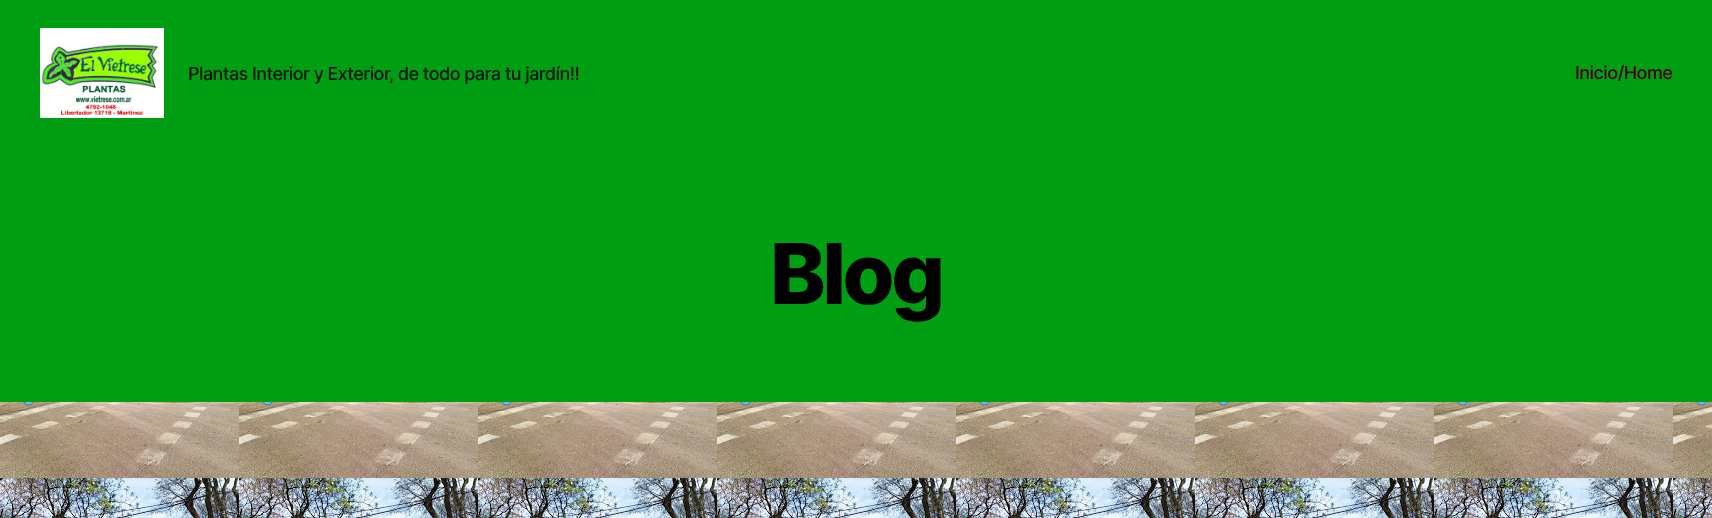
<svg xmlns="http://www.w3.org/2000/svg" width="1712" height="518">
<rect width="100%" height="100%" fill="#fff"/>
<image x="0" y="402" width="1712" height="116" href="media/1.png"/>
<rect width="1712" height="402" fill="#009e12"/>
<image x="40" y="28" width="124" height="90" href="media/2.png"/>
<text x="188" y="80" style="font-family:Inter;font-size:18px;font-weight:500;letter-spacing:-0.55px;fill:#061306">Plantas Interior y Exterior, de todo para tu jardín!!</text>
<text x="1575" y="79" style="font-family:Inter;font-size:18px;font-weight:500;letter-spacing:-0.5px;fill:#470013">Inicio/Home</text>
<text x="770" y="304" style="font-family:Inter;font-size:84px;font-weight:800;letter-spacing:-3.5px;fill:#000">Blog</text>
</svg>
